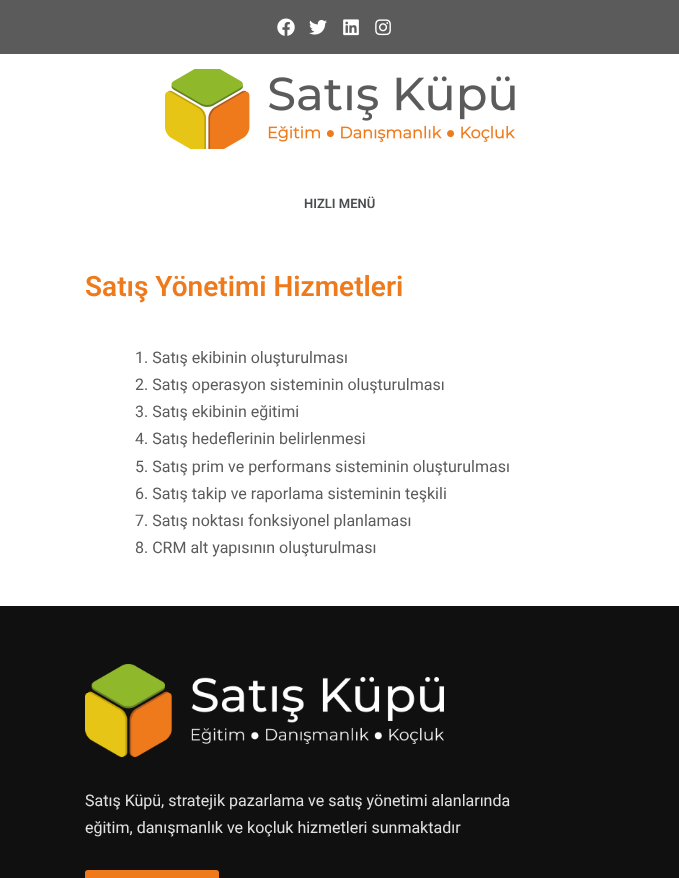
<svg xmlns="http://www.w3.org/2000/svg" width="679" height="878">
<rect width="100%" height="100%" fill="#fff"/>
<rect width="679" height="54" fill="#5b5b5b"/>
<image x="277" y="18" width="18" height="18" href="media/1.png"/>
<image x="309" y="19" width="18" height="16" href="media/2.png"/>
<image x="343" y="19" width="16" height="17" href="media/3.png"/>
<image x="375" y="19" width="16" height="17" href="media/4.png"/>
<image x="165" y="69" width="350" height="80" href="media/5.png"/>
<text x="304" y="208" style="font-family:Roboto;font-size:13px;font-weight:600;fill:#494c4f">HIZLI MENÜ</text>
<text x="85" y="296" style="font-family:Roboto;font-size:28px;font-weight:600;fill:#ef7a1b">Satış Yönetimi Hizmetleri</text>
<text x="135" y="363" style="font-family:Roboto;font-size:16px;fill:#5b5b5b">1. Satış ekibinin oluşturulması</text>
<text x="135" y="390" style="font-family:Roboto;font-size:16px;fill:#5b5b5b">2. Satış operasyon sisteminin oluşturulması</text>
<text x="135" y="417" style="font-family:Roboto;font-size:16px;fill:#5b5b5b">3. Satış ekibinin eğitimi</text>
<text x="135" y="444" style="font-family:Roboto;font-size:16px;fill:#5b5b5b">4. Satış hedeflerinin belirlenmesi</text>
<text x="135" y="472" style="font-family:Roboto;font-size:16px;fill:#5b5b5b">5. Satış prim ve performans sisteminin oluşturulması</text>
<text x="135" y="499" style="font-family:Roboto;font-size:16px;fill:#5b5b5b">6. Satış takip ve raporlama sisteminin teşkili</text>
<text x="135" y="526" style="font-family:Roboto;font-size:16px;fill:#5b5b5b">7. Satış noktası fonksiyonel planlaması</text>
<text x="135" y="553" style="font-family:Roboto;font-size:16px;fill:#5b5b5b">8. CRM alt yapısının oluşturulması</text>
<rect y="606" width="679" height="272" fill="#101010"/>
<image x="85" y="664" width="359" height="93" href="media/6.png"/>
<text x="85" y="806" style="font-family:Roboto;font-size:16px;fill:#e0e0e0">Satış Küpü, stratejik pazarlama ve satış yönetimi alanlarında</text>
<text x="85" y="833" style="font-family:Roboto;font-size:16px;fill:#e0e0e0">eğitim, danışmanlık ve koçluk hizmetleri sunmaktadır</text>
<rect x="85" y="870" width="134" height="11" rx="3" fill="#ef7a1b"/>
</svg>
